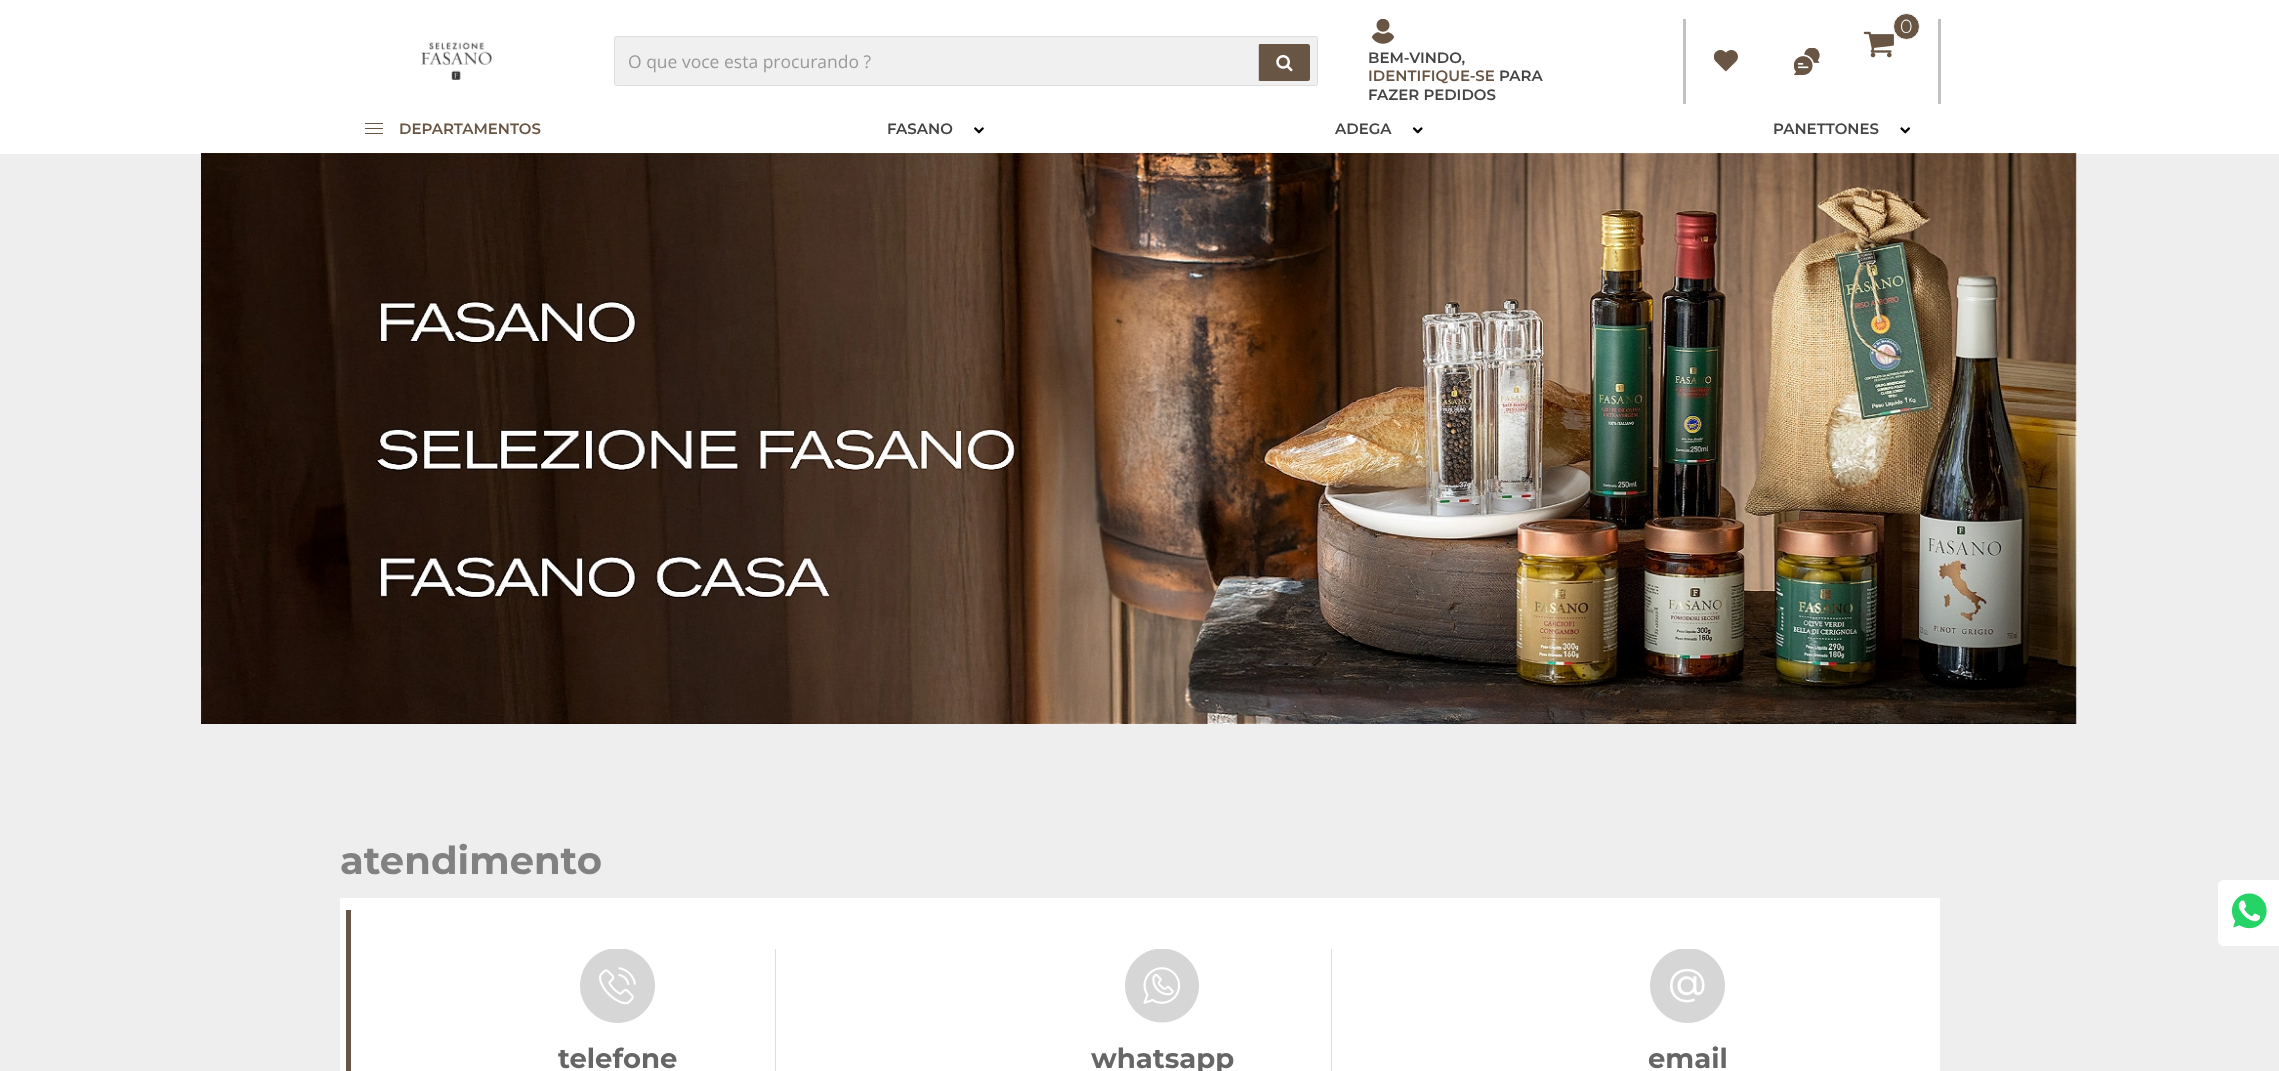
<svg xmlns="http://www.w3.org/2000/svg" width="2279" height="1071">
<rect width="100%" height="100%" fill="#eee"/>
<rect width="2279" height="154" fill="#fff"/>
<image x="420" y="42" width="72" height="38" href="media/1.png"/>
<rect x="614.5" y="36.5" width="703" height="49" rx="2" fill="#f0f0f0" stroke="#ddd"/>
<text x="628" y="68" style="font-family:Open Sans;font-size:17.5px;fill:#999">O que voce esta procurando ?</text>
<rect x="1258" y="44" width="52" height="37" rx="2.5" fill="#695543"/>
<rect x="1258" y="45" width="1" height="35" fill="#d0d0d0"/>
<image x="1276" y="55" width="17" height="17" href="media/2.png"/>
<rect x="1683" y="19" width="3" height="85" fill="#c1c1c1"/>
<image x="1714" y="50" width="24" height="22" href="media/3.png"/>
<image x="1794" y="48" width="26" height="27" href="media/4.png"/>
<image x="1863" y="31" width="31" height="27" href="media/5.png"/>
<circle cx="1906.5" cy="26.5" r="13" fill="#695543" stroke="#fff"/>
<text x="1900" y="33" style="font-family:Montserrat;font-size:19px;font-weight:300;fill:#fff">0</text>
<rect x="1938" y="19" width="3" height="85" fill="#c1c1c1"/>
<image x="1371" y="19" width="24" height="25" href="media/6.png"/>
<text x="1368" y="63" style="font-family:Montserrat;font-size:15px;font-weight:600;fill:#444">BEM-VINDO,</text>
<text x="1368" y="81" style="font-family:Montserrat;font-size:15px;font-weight:600;fill:#695543">IDENTIFIQUE-SE</text>
<text x="1499" y="81" style="font-family:Montserrat;font-size:15px;font-weight:600;fill:#444">PARA</text>
<text x="1368" y="100" style="font-family:Montserrat;font-size:15px;font-weight:600;fill:#444">FAZER PEDIDOS</text>
<rect x="365" y="123" width="18" height="1" fill="#695543"/>
<text x="399" y="134" style="font-family:Montserrat;font-size:15px;font-weight:600;fill:#695543">DEPARTAMENTOS</text>
<rect x="365" y="128" width="18" height="1" fill="#695543"/>
<rect x="365" y="133" width="18" height="1" fill="#695543"/>
<text x="887" y="134" style="font-family:Montserrat;font-size:15px;font-weight:600;fill:#444">FASANO</text>
<image x="974" y="127" width="10" height="7" href="media/7.png"/>
<text x="1335" y="134" style="font-family:Montserrat;font-size:15px;font-weight:600;fill:#444">ADEGA</text>
<image x="1412" y="127" width="11" height="7" href="media/8.png"/>
<text x="1773" y="134" style="font-family:Montserrat;font-size:15px;font-weight:600;fill:#444">PANETTONES</text>
<image x="1900" y="127" width="11" height="7" href="media/9.png"/>
<image x="201" y="153" width="1876" height="571" href="media/10.png"/>
<text x="340" y="874" style="font-family:Montserrat;font-size:38.5px;font-weight:bold;fill:#818181">atendimento</text>
<rect x="340" y="898" width="1600" height="173" fill="#fff"/>
<rect x="346" y="910" width="5" height="161" fill="#695543"/>
<rect x="775" y="949" width="1" height="122" fill="#dedede"/>
<image x="580" y="949" width="75" height="74" href="media/11.png"/>
<text x="558" y="1068" style="font-family:Montserrat;font-size:27.5px;font-weight:bold;fill:#666">telefone</text>
<rect x="1331" y="949" width="1" height="122" fill="#dedede"/>
<image x="1125" y="949" width="74" height="74" href="media/12.png"/>
<text x="1091" y="1068" style="font-family:Montserrat;font-size:27.5px;font-weight:bold;fill:#666">whatsapp</text>
<image x="1650" y="949" width="75" height="74" href="media/13.png"/>
<text x="1648" y="1068" style="font-family:Montserrat;font-size:27.5px;font-weight:bold;fill:#666">email</text>
<path d="M2224 880h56v66h-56c-3.5 0-6-2.5-6-6v-54c0-3.5 2.5-6 6-6z" fill="#fff"/>
<image x="2231" y="893" width="36" height="36" href="media/14.png"/>
</svg>
